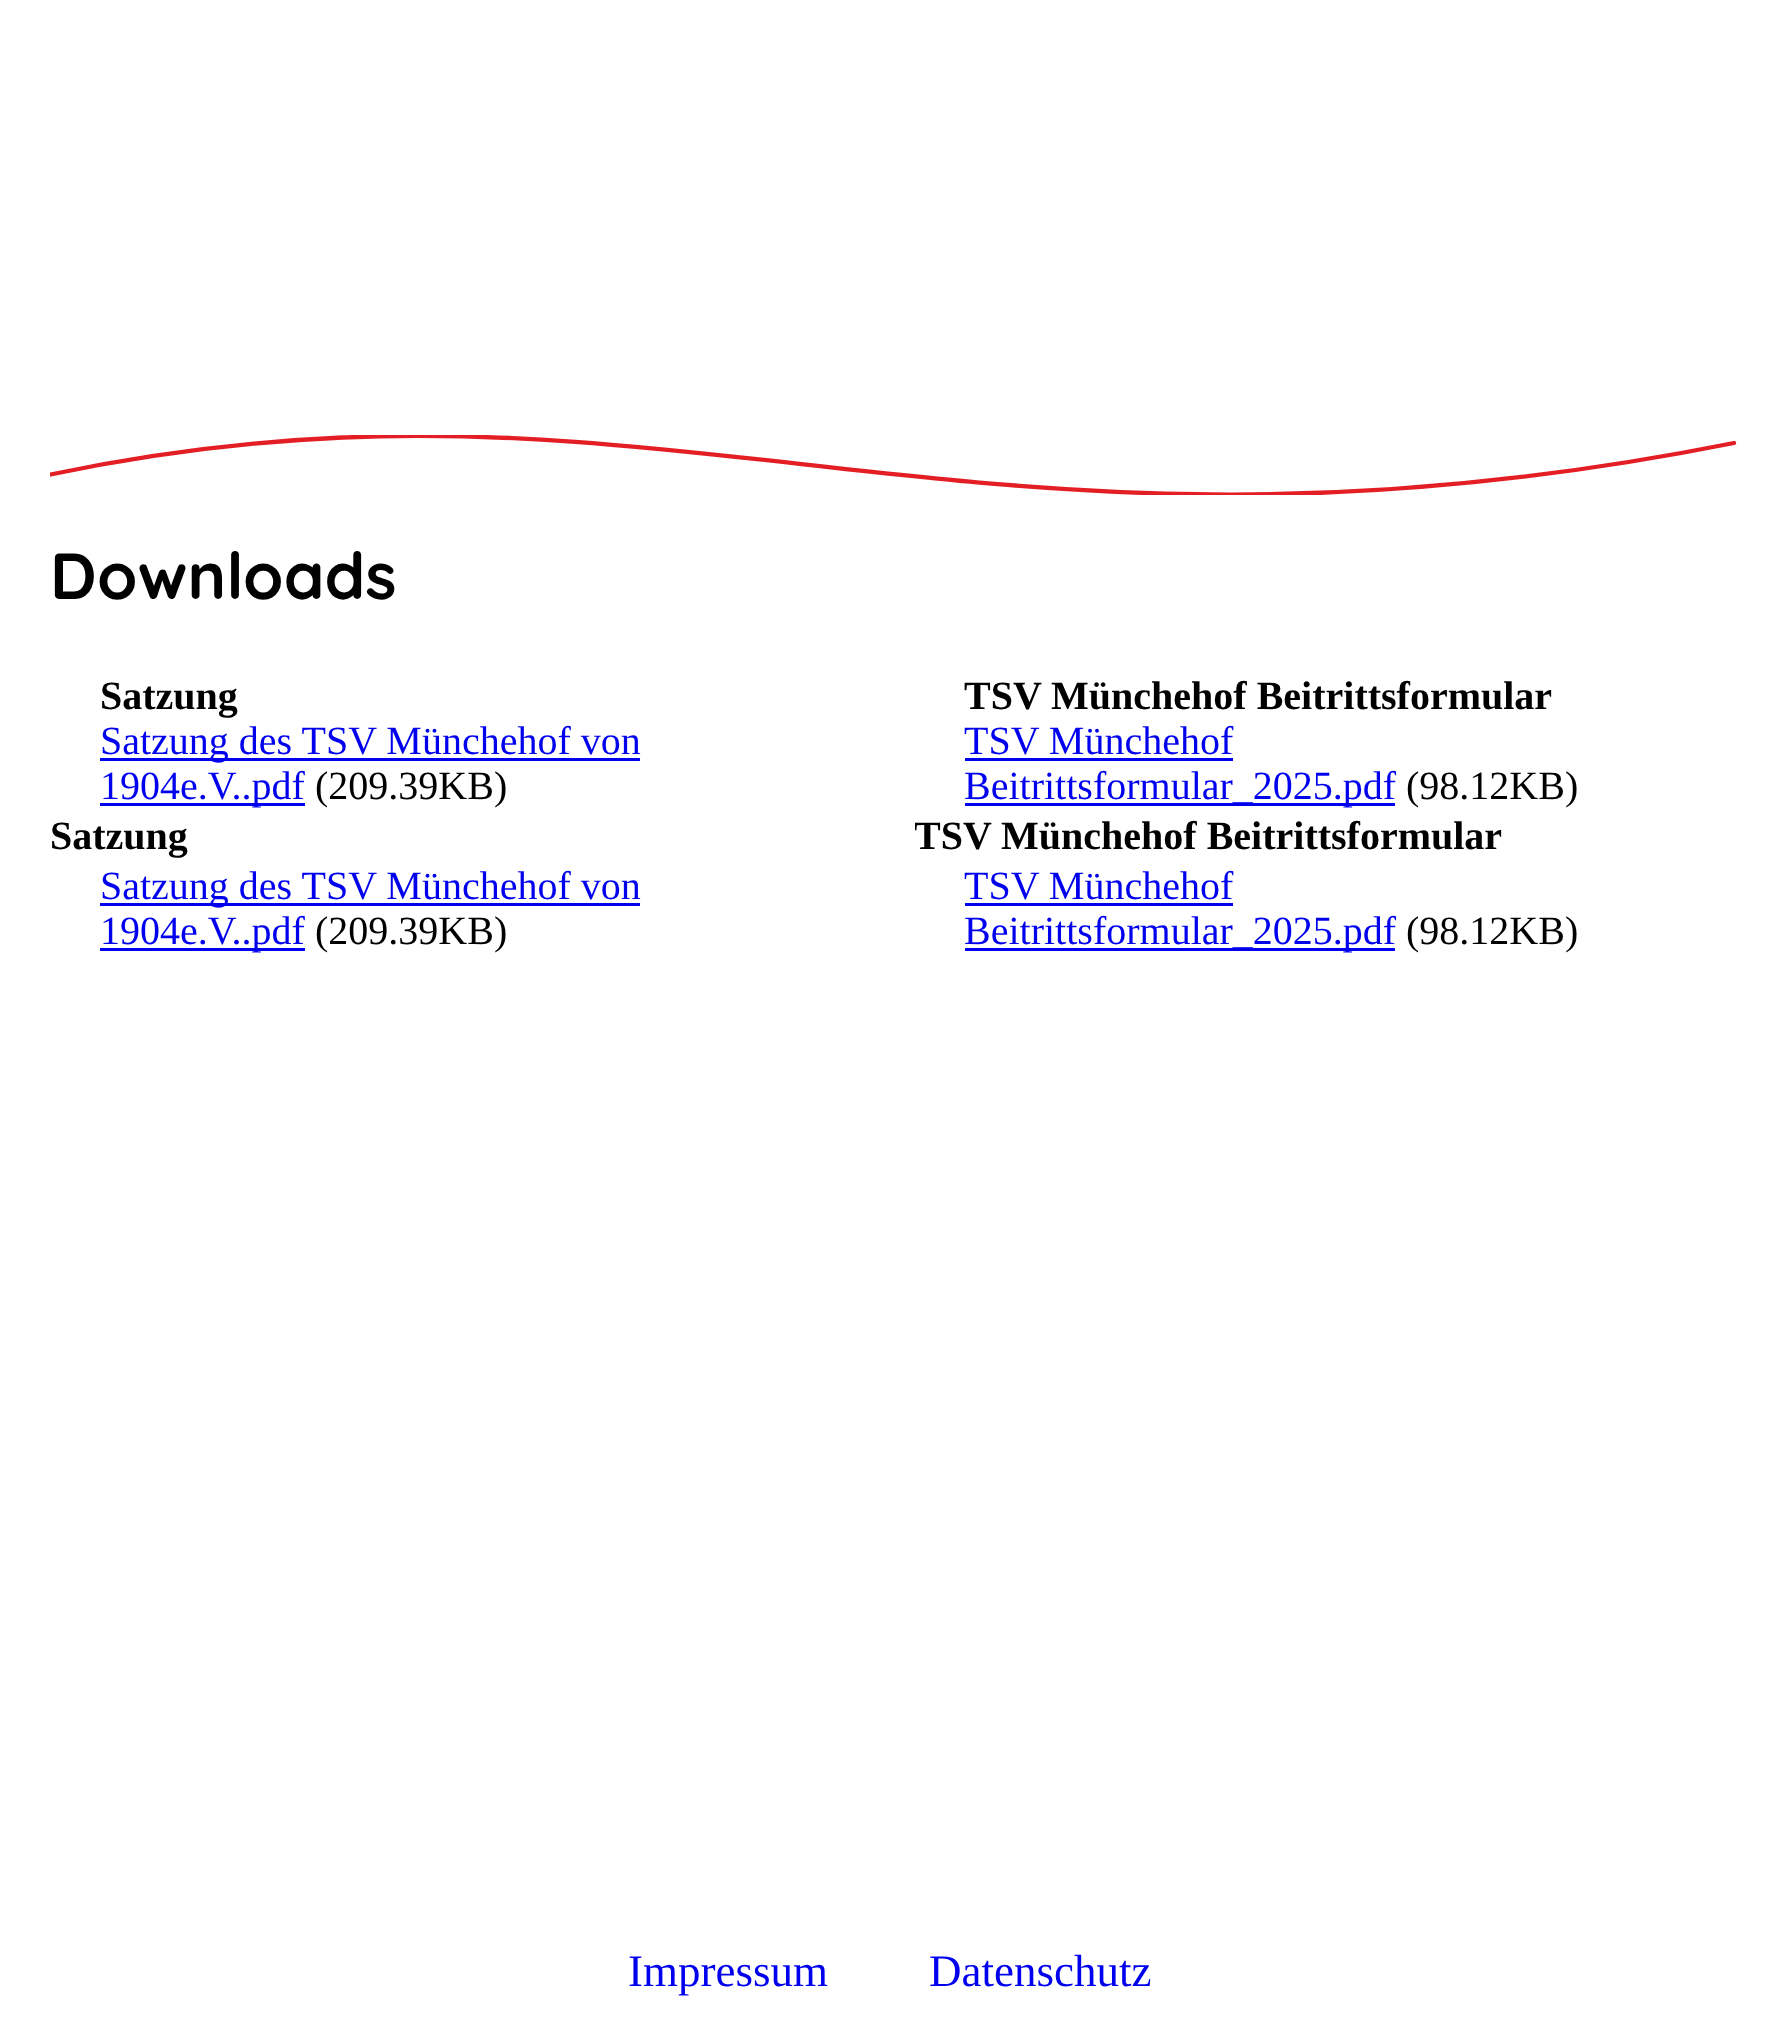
<svg xmlns="http://www.w3.org/2000/svg" width="1789" height="2020">
<defs>
<clipPath id="clip1"><rect x="50" y="435" width="1690" height="60"/></clipPath>
<clipPath id="clip2"><rect x="915" y="670" width="825" height="290"/></clipPath>
</defs>
<rect width="100%" height="100%" fill="#fff"/>
<g clip-path="url(#clip1)">
<path d="M50.5 474.5c105.5-22 201.5-33 292-37c439-18.5 753 133 1391.5 5.5" fill="none" stroke="#e31e24" stroke-width="4.3" stroke-linecap="round"/>
</g>
<text x="50" y="599" style="font-family:Quicksand;font-size:65px;font-weight:bold;fill:#000">Downloads</text>
<text x="100" y="709" style="font-family:Liberation Serif;font-size:40px;font-weight:bold;fill:#000">Satzung</text>
<rect x="100" y="758" width="540" height="3" fill="#00e"/>
<text x="100" y="754" style="font-family:Liberation Serif;font-size:40px;fill:#00e">Satzung des TSV Münchehof von</text>
<rect x="100" y="803" width="205" height="3" fill="#00e"/>
<text x="100" y="799" style="font-family:Liberation Serif;font-size:40px;fill:#00e">1904e.V..pdf</text>
<text x="315" y="799" style="font-family:Liberation Serif;font-size:40px;fill:#000">(209.39KB)</text>
<text x="50" y="849" style="font-family:Liberation Serif;font-size:40px;font-weight:bold;fill:#000">Satzung</text>
<rect x="100" y="903" width="540" height="3" fill="#00e"/>
<text x="100" y="899" style="font-family:Liberation Serif;font-size:40px;fill:#00e">Satzung des TSV Münchehof von</text>
<rect x="100" y="948" width="205" height="3" fill="#00e"/>
<text x="100" y="944" style="font-family:Liberation Serif;font-size:40px;fill:#00e">1904e.V..pdf</text>
<text x="315" y="944" style="font-family:Liberation Serif;font-size:40px;fill:#000">(209.39KB)</text>
<text x="964" y="709" style="font-family:Liberation Serif;font-size:40px;font-weight:bold;fill:#000">TSV Münchehof Beitrittsformular</text>
<text x="964" y="754" style="font-family:Liberation Serif;font-size:40px;fill:#00e">TSV Münchehof</text>
<rect x="965" y="758" width="268" height="3" fill="#00e"/>
<rect x="965" y="803" width="430" height="3" fill="#00e"/>
<text x="964" y="799" style="font-family:Liberation Serif;font-size:40px;fill:#00e">Beitrittsformular_2025.pdf</text>
<text x="1406" y="799" style="font-family:Liberation Serif;font-size:40px;fill:#000">(98.12KB)</text>
<g clip-path="url(#clip2)">
<text x="914" y="849" style="font-family:Liberation Serif;font-size:40px;font-weight:bold;fill:#000">TSV Münchehof Beitrittsformular</text>
</g>
<text x="964" y="899" style="font-family:Liberation Serif;font-size:40px;fill:#00e">TSV Münchehof</text>
<rect x="965" y="903" width="268" height="3" fill="#00e"/>
<rect x="965" y="948" width="430" height="3" fill="#00e"/>
<text x="964" y="944" style="font-family:Liberation Serif;font-size:40px;fill:#00e">Beitrittsformular_2025.pdf</text>
<text x="1406" y="944" style="font-family:Liberation Serif;font-size:40px;fill:#000">(98.12KB)</text>
<text x="628" y="1986" style="font-family:Liberation Serif;font-size:45px;fill:#00e">Impressum</text>
<text x="929" y="1986" style="font-family:Liberation Serif;font-size:45px;fill:#00e">Datenschutz</text>
</svg>
